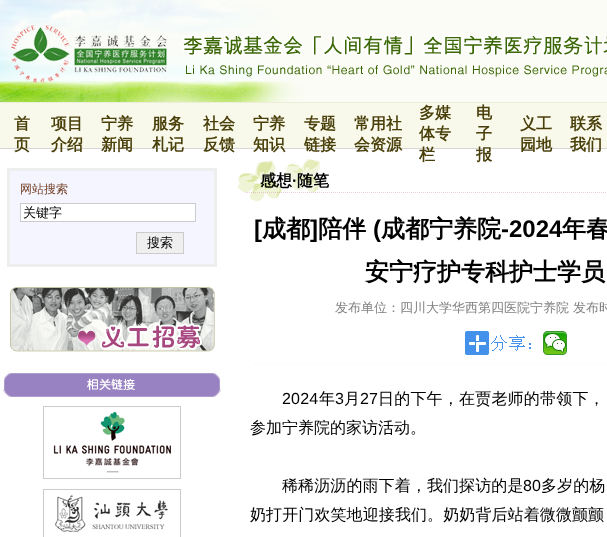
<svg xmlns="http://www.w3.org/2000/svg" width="607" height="537">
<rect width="100%" height="100%" fill="#fff"/>
<rect y="102" width="607" height="1" fill="#edeed9"/>
<image x="0" y="0" width="607" height="102" href="media/1.png"/>
<rect y="103" width="607" height="45" fill="#f8f9ea"/>
<rect y="148" width="607" height="1" fill="#d6d6d6"/>
<text x="14" y="129" style="font-family:WenQuanYi Zen Hei;font-size:16px;font-weight:bold;fill:#493f0a">首</text>
<text x="14" y="150" style="font-family:WenQuanYi Zen Hei;font-size:16px;font-weight:bold;fill:#493f0a">页</text>
<text x="51" y="129" style="font-family:WenQuanYi Zen Hei;font-size:16px;font-weight:bold;fill:#493f0a">项目</text>
<text x="51" y="150" style="font-family:WenQuanYi Zen Hei;font-size:16px;font-weight:bold;fill:#493f0a">介绍</text>
<text x="101" y="129" style="font-family:WenQuanYi Zen Hei;font-size:16px;font-weight:bold;fill:#493f0a">宁养</text>
<text x="101" y="150" style="font-family:WenQuanYi Zen Hei;font-size:16px;font-weight:bold;fill:#493f0a">新闻</text>
<text x="152" y="129" style="font-family:WenQuanYi Zen Hei;font-size:16px;font-weight:bold;fill:#493f0a">服务</text>
<text x="152" y="150" style="font-family:WenQuanYi Zen Hei;font-size:16px;font-weight:bold;fill:#493f0a">札记</text>
<text x="203" y="129" style="font-family:WenQuanYi Zen Hei;font-size:16px;font-weight:bold;fill:#493f0a">社会</text>
<text x="203" y="150" style="font-family:WenQuanYi Zen Hei;font-size:16px;font-weight:bold;fill:#493f0a">反馈</text>
<text x="253" y="129" style="font-family:WenQuanYi Zen Hei;font-size:16px;font-weight:bold;fill:#493f0a">宁养</text>
<text x="253" y="150" style="font-family:WenQuanYi Zen Hei;font-size:16px;font-weight:bold;fill:#493f0a">知识</text>
<text x="304" y="129" style="font-family:WenQuanYi Zen Hei;font-size:16px;font-weight:bold;fill:#493f0a">专题</text>
<text x="304" y="150" style="font-family:WenQuanYi Zen Hei;font-size:16px;font-weight:bold;fill:#493f0a">链接</text>
<text x="354" y="129" style="font-family:WenQuanYi Zen Hei;font-size:16px;font-weight:bold;fill:#493f0a">常用社</text>
<text x="354" y="150" style="font-family:WenQuanYi Zen Hei;font-size:16px;font-weight:bold;fill:#493f0a">会资源</text>
<text x="419" y="118" style="font-family:WenQuanYi Zen Hei;font-size:16px;font-weight:bold;fill:#493f0a">多媒</text>
<text x="419" y="139" style="font-family:WenQuanYi Zen Hei;font-size:16px;font-weight:bold;fill:#493f0a">体专</text>
<image x="237" y="159" width="369" height="43" href="media/6.png"/>
<text x="419" y="160" style="font-family:WenQuanYi Zen Hei;font-size:16px;font-weight:bold;fill:#493f0a">栏</text>
<text x="476" y="118" style="font-family:WenQuanYi Zen Hei;font-size:16px;font-weight:bold;fill:#493f0a">电</text>
<text x="476" y="139" style="font-family:WenQuanYi Zen Hei;font-size:16px;font-weight:bold;fill:#493f0a">子</text>
<text x="476" y="160" style="font-family:WenQuanYi Zen Hei;font-size:16px;font-weight:bold;fill:#493f0a">报</text>
<text x="520" y="129" style="font-family:WenQuanYi Zen Hei;font-size:16px;font-weight:bold;fill:#493f0a">义工</text>
<text x="520" y="150" style="font-family:WenQuanYi Zen Hei;font-size:16px;font-weight:bold;fill:#493f0a">园地</text>
<text x="570" y="129" style="font-family:WenQuanYi Zen Hei;font-size:16px;font-weight:bold;fill:#493f0a">联系</text>
<text x="570" y="150" style="font-family:WenQuanYi Zen Hei;font-size:16px;font-weight:bold;fill:#493f0a">我们</text>
<rect x="8.5" y="169.5" width="207" height="96" fill="#f5f5ff" stroke="#eee" stroke-width="3"/>
<text x="20" y="193" style="font-family:WenQuanYi Zen Hei;font-size:12px;font-weight:500;fill:#754227">网站搜索</text>
<rect x="20.5" y="203.5" width="175" height="18" fill="#fff" stroke="#ccc"/>
<text x="23" y="217" style="font-family:WenQuanYi Zen Hei;font-size:13px;font-weight:500;fill:#000">关键字</text>
<rect x="136.5" y="232.5" width="47" height="21" fill="#efefef" stroke="#ccc"/>
<text x="147" y="247" style="font-family:WenQuanYi Zen Hei;font-size:13px;font-weight:500;fill:#000">搜索</text>
<image x="10" y="287" width="205" height="65" href="media/2.png"/>
<image x="3" y="373" width="218" height="24" href="media/3.png"/>
<rect x="43.5" y="406.5" width="137" height="72" fill="none" stroke="#ccc"/>
<image x="53" y="411" width="118" height="62" href="media/4.png"/>
<rect x="43.5" y="489.5" width="137" height="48" fill="none" stroke="#ccc"/>
<image x="55" y="495" width="113" height="38" href="media/5.png"/>
<text x="260" y="186" style="font-family:WenQuanYi Zen Hei;font-size:16px;font-weight:bold;fill:#000">感想</text>
<text x="292" y="186" style="font-family:Liberation Sans;font-size:16px;font-weight:bold;fill:#000">·</text>
<text x="297" y="186" style="font-family:WenQuanYi Zen Hei;font-size:16px;font-weight:bold;fill:#000">随笔</text>
<text x="254" y="237" style="font-family:Liberation Sans;font-size:24px;font-weight:bold;fill:#000">[</text>
<text x="262" y="237" style="font-family:WenQuanYi Zen Hei;font-size:24px;font-weight:bold;fill:#000">成都</text>
<text x="310" y="237" style="font-family:Liberation Sans;font-size:24px;font-weight:bold;fill:#000">]</text>
<text x="318" y="237" style="font-family:WenQuanYi Zen Hei;font-size:24px;font-weight:bold;fill:#000">陪伴</text>
<text x="373" y="237" style="font-family:Liberation Sans;font-size:24px;font-weight:bold;fill:#000">(</text>
<text x="381" y="237" style="font-family:WenQuanYi Zen Hei;font-size:24px;font-weight:bold;fill:#000">成都宁养院</text>
<text x="501" y="237" style="font-family:Liberation Sans;font-size:24px;font-weight:bold;fill:#000">-2024</text>
<text x="562" y="237" style="font-family:WenQuanYi Zen Hei;font-size:24px;font-weight:bold;fill:#000">年春</text>
<text x="365" y="280" word-spacing="-1" style="font-family:WenQuanYi Zen Hei;font-size:24px;font-weight:bold;fill:#000">安宁疗护专科护士学员</text>
<text x="335" y="312" style="font-family:WenQuanYi Zen Hei;font-size:13px;font-weight:500;fill:#808080">发布单位：四川大学华西第四医院宁养院 发布时</text>
<path d="M253 364.5h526" fill="none" stroke="#f5f8fc" stroke-dasharray="1 1"/>
<image x="465" y="331" width="66" height="24" href="media/7.png"/>
<image x="543" y="331" width="24" height="24" href="media/8.png"/>
<text x="282" y="404" style="font-family:Liberation Sans;font-size:16px;letter-spacing:0.2px;fill:#000">2024</text>
<text x="319" y="404" style="font-family:WenQuanYi Zen Hei;font-size:16px;font-weight:500;letter-spacing:0.2px;fill:#000">年</text>
<text x="335" y="404" style="font-family:Liberation Sans;font-size:16px;letter-spacing:0.2px;fill:#000">3</text>
<text x="344" y="404" style="font-family:WenQuanYi Zen Hei;font-size:16px;font-weight:500;letter-spacing:0.2px;fill:#000">月</text>
<text x="360" y="404" style="font-family:Liberation Sans;font-size:16px;letter-spacing:0.2px;fill:#000">27</text>
<text x="378" y="404" style="font-family:WenQuanYi Zen Hei;font-size:16px;font-weight:500;letter-spacing:0.2px;fill:#000">日的下午，在贾老师的带领下，</text>
<text x="250" y="433" style="font-family:WenQuanYi Zen Hei;font-size:16px;font-weight:500;fill:#000">参加宁养院的家访活动。</text>
<text x="282" y="491" style="font-family:WenQuanYi Zen Hei;font-size:16px;font-weight:500;letter-spacing:0.1px;fill:#000">稀稀沥沥的雨下着，我们探访的是</text>
<text x="523" y="491" style="font-family:Liberation Sans;font-size:16px;letter-spacing:0.1px;fill:#000">80</text>
<text x="541" y="491" style="font-family:WenQuanYi Zen Hei;font-size:16px;font-weight:500;letter-spacing:0.1px;fill:#000">多岁的杨</text>
<text x="250" y="520" style="font-family:WenQuanYi Zen Hei;font-size:16px;font-weight:500;letter-spacing:0.1px;fill:#000">奶打开门欢笑地迎接我们。奶奶背后站着微微颤颤</text>
</svg>
